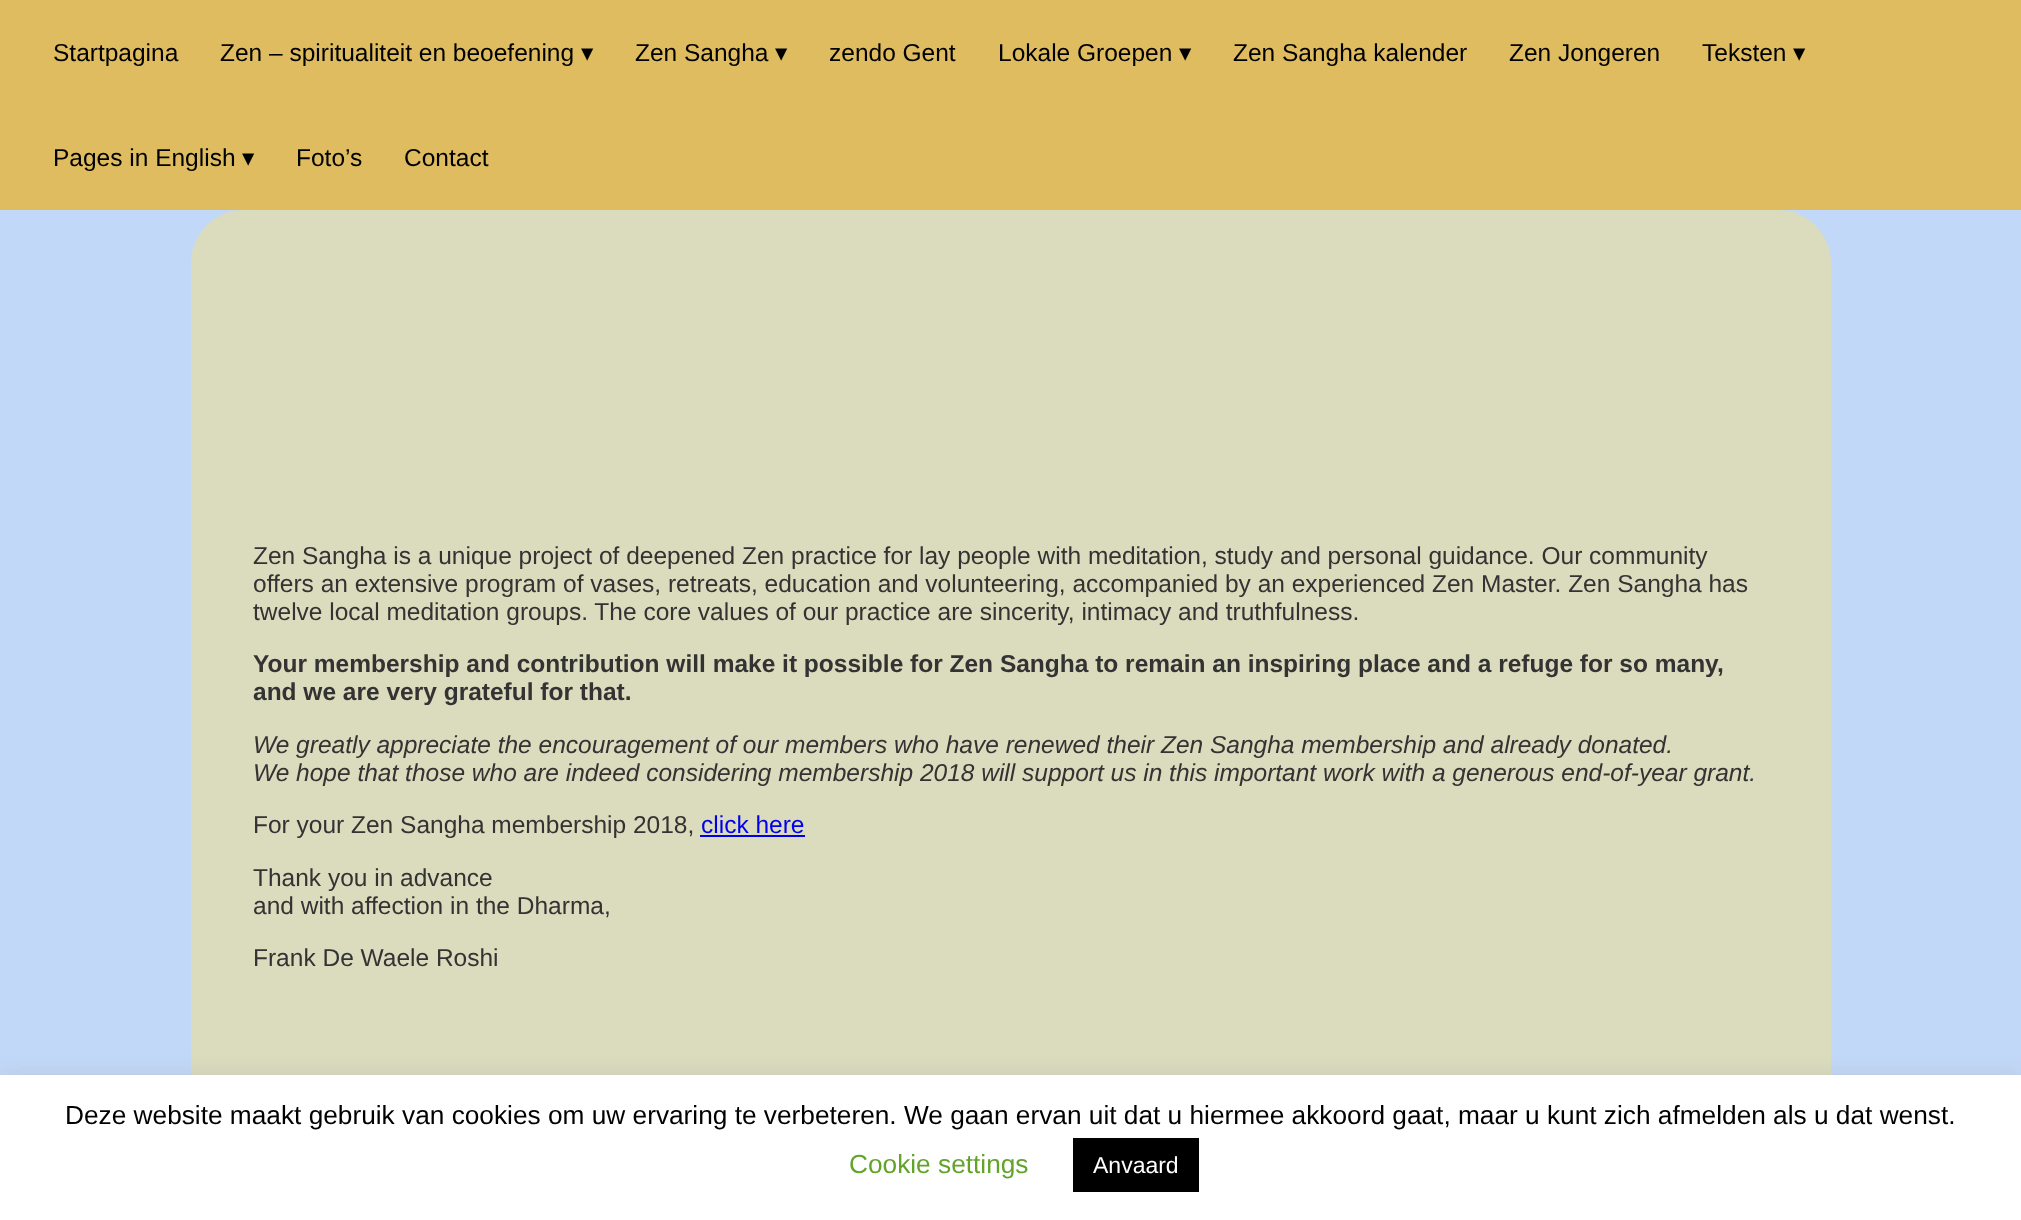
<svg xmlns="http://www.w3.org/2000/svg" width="2021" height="1220">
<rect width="100%" height="100%" fill="#debc5f"/>
<text x="53" y="61" style="font-family:Liberation Sans;font-size:24.5px;fill:#000">Startpagina</text>
<text x="220" y="61" style="font-family:Liberation Sans;font-size:24.5px;fill:#000">Zen – spiritualiteit en beoefening</text>
<text x="581" y="61" style="font-family:DejaVu Sans;font-size:24.5px;fill:#000">▾</text>
<text x="635" y="61" style="font-family:Liberation Sans;font-size:24.5px;fill:#000">Zen Sangha</text>
<text x="775" y="61" style="font-family:DejaVu Sans;font-size:24.5px;fill:#000">▾</text>
<text x="829" y="61" style="font-family:Liberation Sans;font-size:24.5px;fill:#000">zendo Gent</text>
<text x="998" y="61" style="font-family:Liberation Sans;font-size:24.5px;fill:#000">Lokale Groepen</text>
<text x="1179" y="61" style="font-family:DejaVu Sans;font-size:24.5px;fill:#000">▾</text>
<text x="1233" y="61" style="font-family:Liberation Sans;font-size:24.5px;fill:#000">Zen Sangha kalender</text>
<text x="1509" y="61" style="font-family:Liberation Sans;font-size:24.5px;fill:#000">Zen Jongeren</text>
<text x="1702" y="61" style="font-family:Liberation Sans;font-size:24.5px;fill:#000">Teksten</text>
<text x="1793" y="61" style="font-family:DejaVu Sans;font-size:24.5px;fill:#000">▾</text>
<text x="53" y="166" style="font-family:Liberation Sans;font-size:24.5px;fill:#000">Pages in English</text>
<text x="242" y="166" style="font-family:DejaVu Sans;font-size:24.5px;fill:#000">▾</text>
<text x="296" y="166" style="font-family:Liberation Sans;font-size:24.5px;fill:#000">Foto’s</text>
<text x="404" y="166" style="font-family:Liberation Sans;font-size:24.5px;fill:#000">Contact</text>
<rect y="210" width="2021" height="865" fill="#c1d8f8"/>
<rect x="191" y="210" width="1640" height="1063" rx="53" fill="#dbdbbd"/>
<text x="253" y="564" style="font-family:Liberation Sans;font-size:24.5px;fill:#333">Zen Sangha is a unique project of deepened Zen practice for lay people with meditation, study and personal guidance. Our community</text>
<text x="253" y="592" style="font-family:Liberation Sans;font-size:24.5px;fill:#333">offers an extensive program of vases, retreats, education and volunteering, accompanied by an experienced Zen Master. Zen Sangha has</text>
<text x="253" y="620" style="font-family:Liberation Sans;font-size:24.5px;fill:#333">twelve local meditation groups. The core values of our practice are sincerity, intimacy and truthfulness.</text>
<text x="253" y="672" style="font-family:Liberation Sans;font-size:24.5px;font-weight:bold;fill:#333">Your membership and contribution will make it possible for Zen Sangha to remain an inspiring place and a refuge for so many,</text>
<text x="253" y="700" style="font-family:Liberation Sans;font-size:24.5px;font-weight:bold;fill:#333">and we are very grateful for that.</text>
<text x="253" y="753" style="font-family:Liberation Sans;font-size:24.5px;font-style:italic;fill:#333">We greatly appreciate the encouragement of our members who have renewed their Zen Sangha membership and already donated.</text>
<text x="253" y="781" style="font-family:Liberation Sans;font-size:24.5px;font-style:italic;fill:#333">We hope that those who are indeed considering membership 2018 will support us in this important work with a generous end-of-year grant.</text>
<text x="253" y="833" style="font-family:Liberation Sans;font-size:24.5px;fill:#333">For your Zen Sangha membership 2018,</text>
<text x="701" y="833" style="font-family:Liberation Sans;font-size:24.5px;fill:#00e">click here</text>
<rect x="700" y="835" width="105" height="2" fill="#00e"/>
<text x="253" y="886" style="font-family:Liberation Sans;font-size:24.5px;fill:#333">Thank you in advance</text>
<text x="253" y="914" style="font-family:Liberation Sans;font-size:24.5px;fill:#333">and with affection in the Dharma,</text>
<text x="253" y="966" style="font-family:Liberation Sans;font-size:24.5px;fill:#333">Frank De Waele Roshi</text>
<rect y="1073" width="2021" height="147" fill="#acabab4d" filter="blur(9px)"/>
<rect y="1075" width="2021" height="145" fill="#fff"/>
<text x="65" y="1124" style="font-family:Liberation Sans;font-size:26.25px;fill:#000">Deze website maakt gebruik van cookies om uw ervaring te verbeteren. We gaan ervan uit dat u hiermee akkoord gaat, maar u kunt zich afmelden als u dat wenst.</text>
<text x="849" y="1173" style="font-family:Liberation Sans;font-size:26.25px;fill:#62a329">Cookie settings</text>
<rect x="1073" y="1138" width="126" height="54" fill="#000"/>
<text x="1093" y="1173" style="font-family:Liberation Sans;font-size:23px;fill:#fff">Anvaard</text>
</svg>
